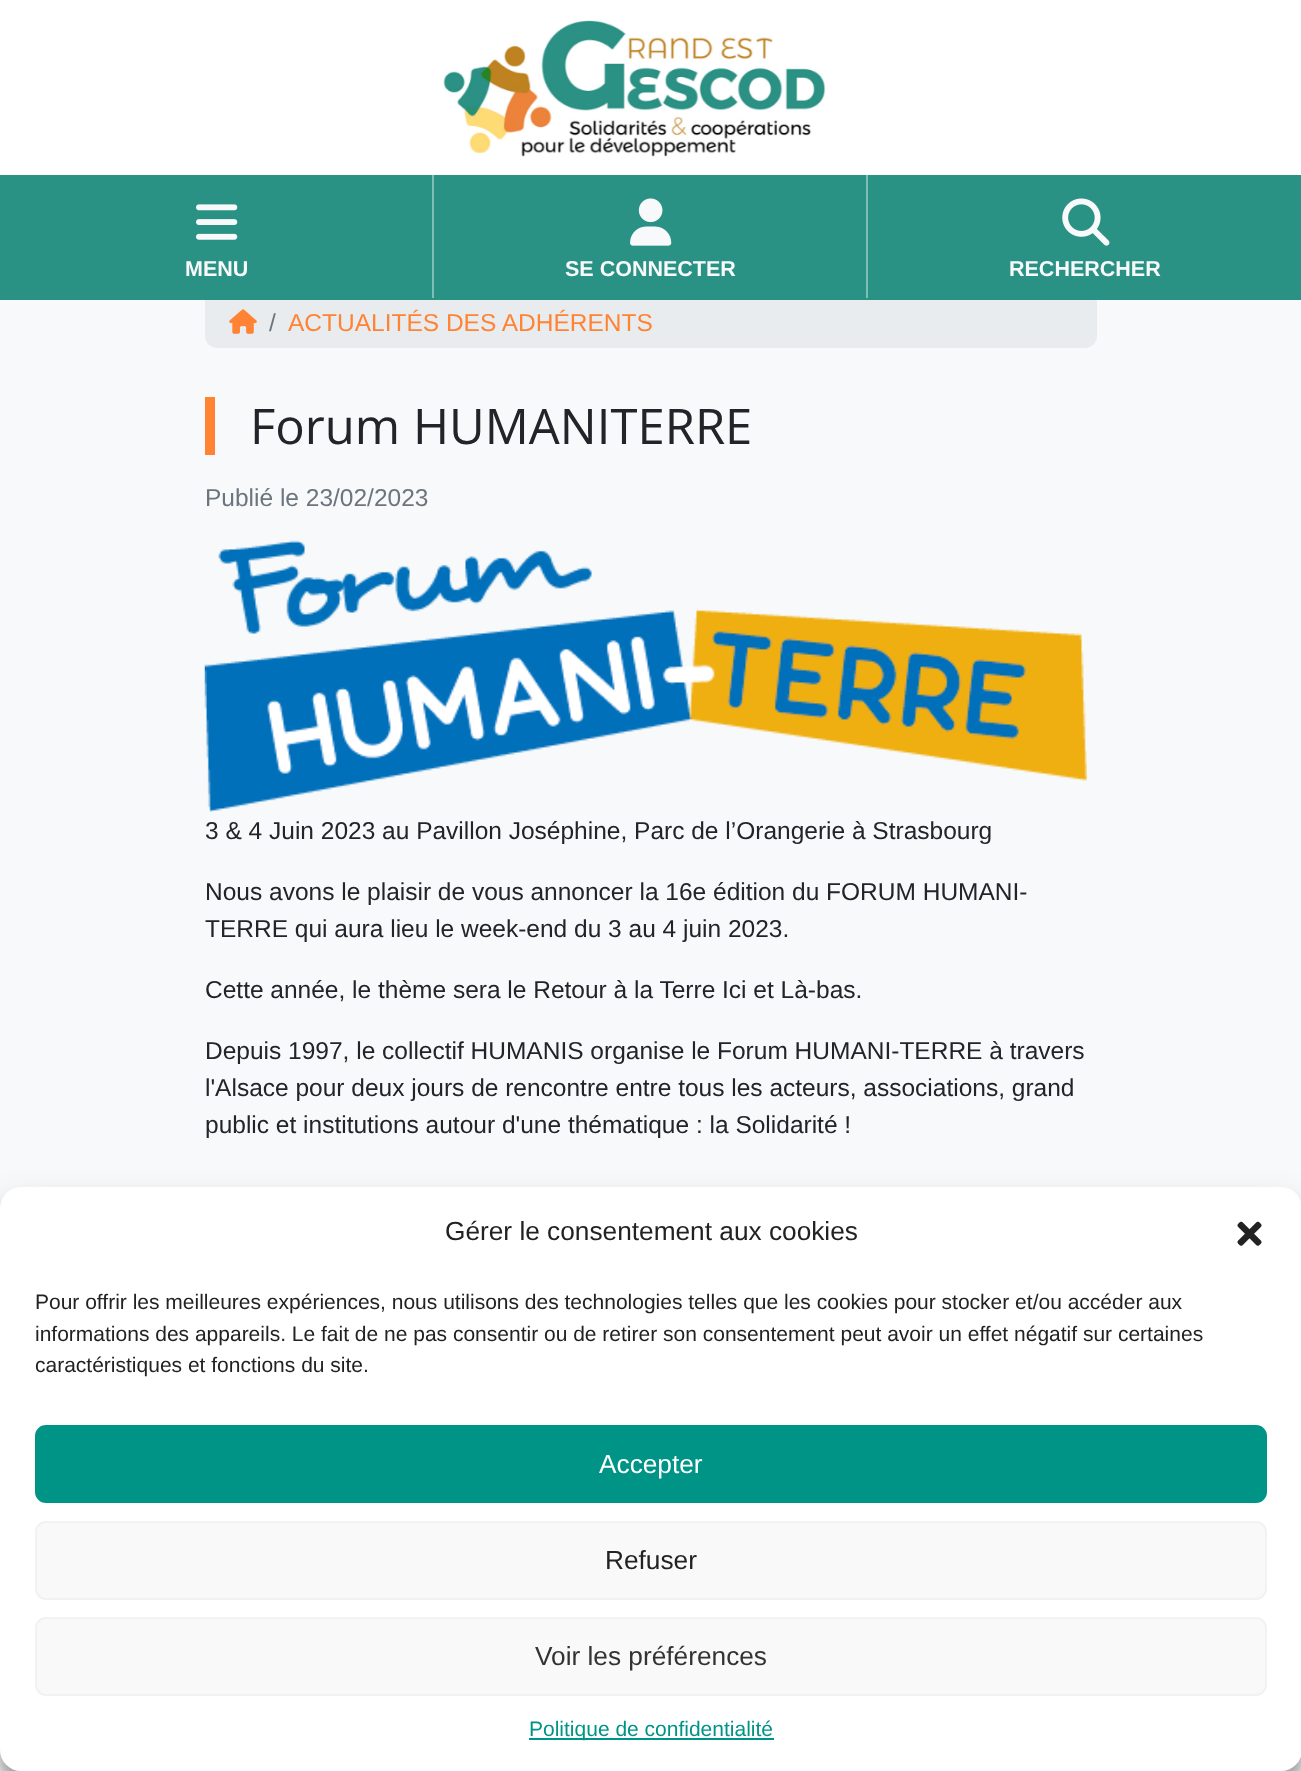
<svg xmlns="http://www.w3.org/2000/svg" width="1301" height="1771">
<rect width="100%" height="100%" fill="#fff"/>
<rect y="300" width="1301" height="1471" fill="#f8f9fa"/>
<path d="M205 299h892v37c0 6.5-5.5 12-12 12h-868c-6.5 0-12-5.5-12-12z" fill="#e9ecef"/>
<rect y="175" width="1301" height="125" fill="#299284"/>
<image x="443" y="20" width="383" height="137" href="media/1.png"/>
<rect x="432" y="175" width="2" height="123" fill="#7fbeb5"/>
<image x="196" y="204" width="42" height="36" href="media/2.png"/>
<text x="185" y="276" style="font-family:Liberation Sans;font-size:21.5px;font-weight:bold;fill:#f8f9fa">MENU</text>
<rect x="866" y="175" width="2" height="123" fill="#7fbeb5"/>
<image x="630" y="198" width="42" height="48" href="media/3.png"/>
<text x="565" y="276" style="font-family:Liberation Sans;font-size:21.5px;font-weight:bold;fill:#f8f9fa">SE CONNECTER</text>
<image x="1062" y="198" width="48" height="48" href="media/4.png"/>
<text x="1009" y="276" style="font-family:Liberation Sans;font-size:21.5px;font-weight:bold;fill:#f8f9fa">RECHERCHER</text>
<image x="229" y="309" width="28" height="25" href="media/5.png"/>
<text x="269" y="331" style="font-family:Liberation Sans;font-size:24.5px;fill:#6c757d">/</text>
<text x="288" y="331" style="font-family:Liberation Sans;font-size:24.5px;fill:#ff8332">ACTUALITÉS DES ADHÉRENTS</text>
<rect x="205" y="397" width="10" height="58" fill="#ff8332"/>
<text x="250" y="444" style="font-family:Open Sans;font-size:49px;fill:#212529">Forum HUMANITERRE</text>
<text x="205" y="506" style="font-family:Liberation Sans;font-size:24.5px;fill:#6c757d">Publié le 23/02/2023</text>
<image x="204" y="540" width="883" height="272" href="media/6.png"/>
<text x="205" y="839" style="font-family:Liberation Sans;font-size:24.5px;fill:#212529">3 &amp; 4 Juin 2023 au Pavillon Joséphine, Parc de l’Orangerie à Strasbourg</text>
<text x="205" y="900" style="font-family:Liberation Sans;font-size:24.5px;fill:#212529">Nous avons le plaisir de vous annoncer la 16e édition du FORUM HUMANI-</text>
<text x="205" y="937" style="font-family:Liberation Sans;font-size:24.5px;fill:#212529">TERRE qui aura lieu le week-end du 3 au 4 juin 2023.</text>
<text x="205" y="998" style="font-family:Liberation Sans;font-size:24.5px;fill:#212529">Cette année, le thème sera le Retour à la Terre Ici et Là-bas.</text>
<text x="205" y="1059" style="font-family:Liberation Sans;font-size:24.5px;fill:#212529">Depuis 1997, le collectif HUMANIS organise le Forum HUMANI-TERRE à travers</text>
<text x="205" y="1096" style="font-family:Liberation Sans;font-size:24.5px;fill:#212529">l'Alsace pour deux jours de rencontre entre tous les acteurs, associations, grand</text>
<text x="205" y="1133" style="font-family:Liberation Sans;font-size:24.5px;fill:#212529">public et institutions autour d'une thématique : la Solidarité !</text>
<rect y="1197" width="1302" height="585" rx="21" fill="#0000003b" filter="blur(5px)"/>
<rect y="1204" width="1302" height="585" rx="21" fill="#00000030" filter="blur(17.5px)"/>
<rect y="1187" width="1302" height="584" rx="21" fill="#fff"/>
<text x="445" y="1240" style="font-family:Liberation Sans;font-size:26.25px;fill:#222">Gérer le consentement aux cookies</text>
<image x="1237" y="1221" width="25" height="25" href="media/7.png"/>
<text x="35" y="1309" style="font-family:Liberation Sans;font-size:21px;fill:#222">Pour offrir les meilleures expériences, nous utilisons des technologies telles que les cookies pour stocker et/ou accéder aux</text>
<text x="35" y="1341" style="font-family:Liberation Sans;font-size:21px;fill:#222">informations des appareils. Le fait de ne pas consentir ou de retirer son consentement peut avoir un effet négatif sur certaines</text>
<text x="35" y="1372" style="font-family:Liberation Sans;font-size:21px;fill:#222">caractéristiques et fonctions du site.</text>
<rect x="36" y="1426" width="1230" height="76" rx="10" fill="#009487" stroke="#009487" stroke-width="2"/>
<text x="599" y="1473" style="font-family:Liberation Sans;font-size:26.25px;fill:#fff">Accepter</text>
<rect x="36" y="1522" width="1230" height="77" rx="10" fill="#f9f9f9" stroke="#f2f2f2" stroke-width="2"/>
<text x="605" y="1569" style="font-family:Liberation Sans;font-size:26.25px;fill:#222">Refuser</text>
<rect x="36" y="1618" width="1230" height="77" rx="10" fill="#f9f9f9" stroke="#f2f2f2" stroke-width="2"/>
<text x="535" y="1665" style="font-family:Liberation Sans;font-size:26.25px;fill:#333">Voir les préférences</text>
<rect x="529" y="1738" width="245" height="2" fill="#009487"/>
<text x="529" y="1736" style="font-family:Liberation Sans;font-size:21px;fill:#009487">Politique de confidentialité</text>
</svg>
